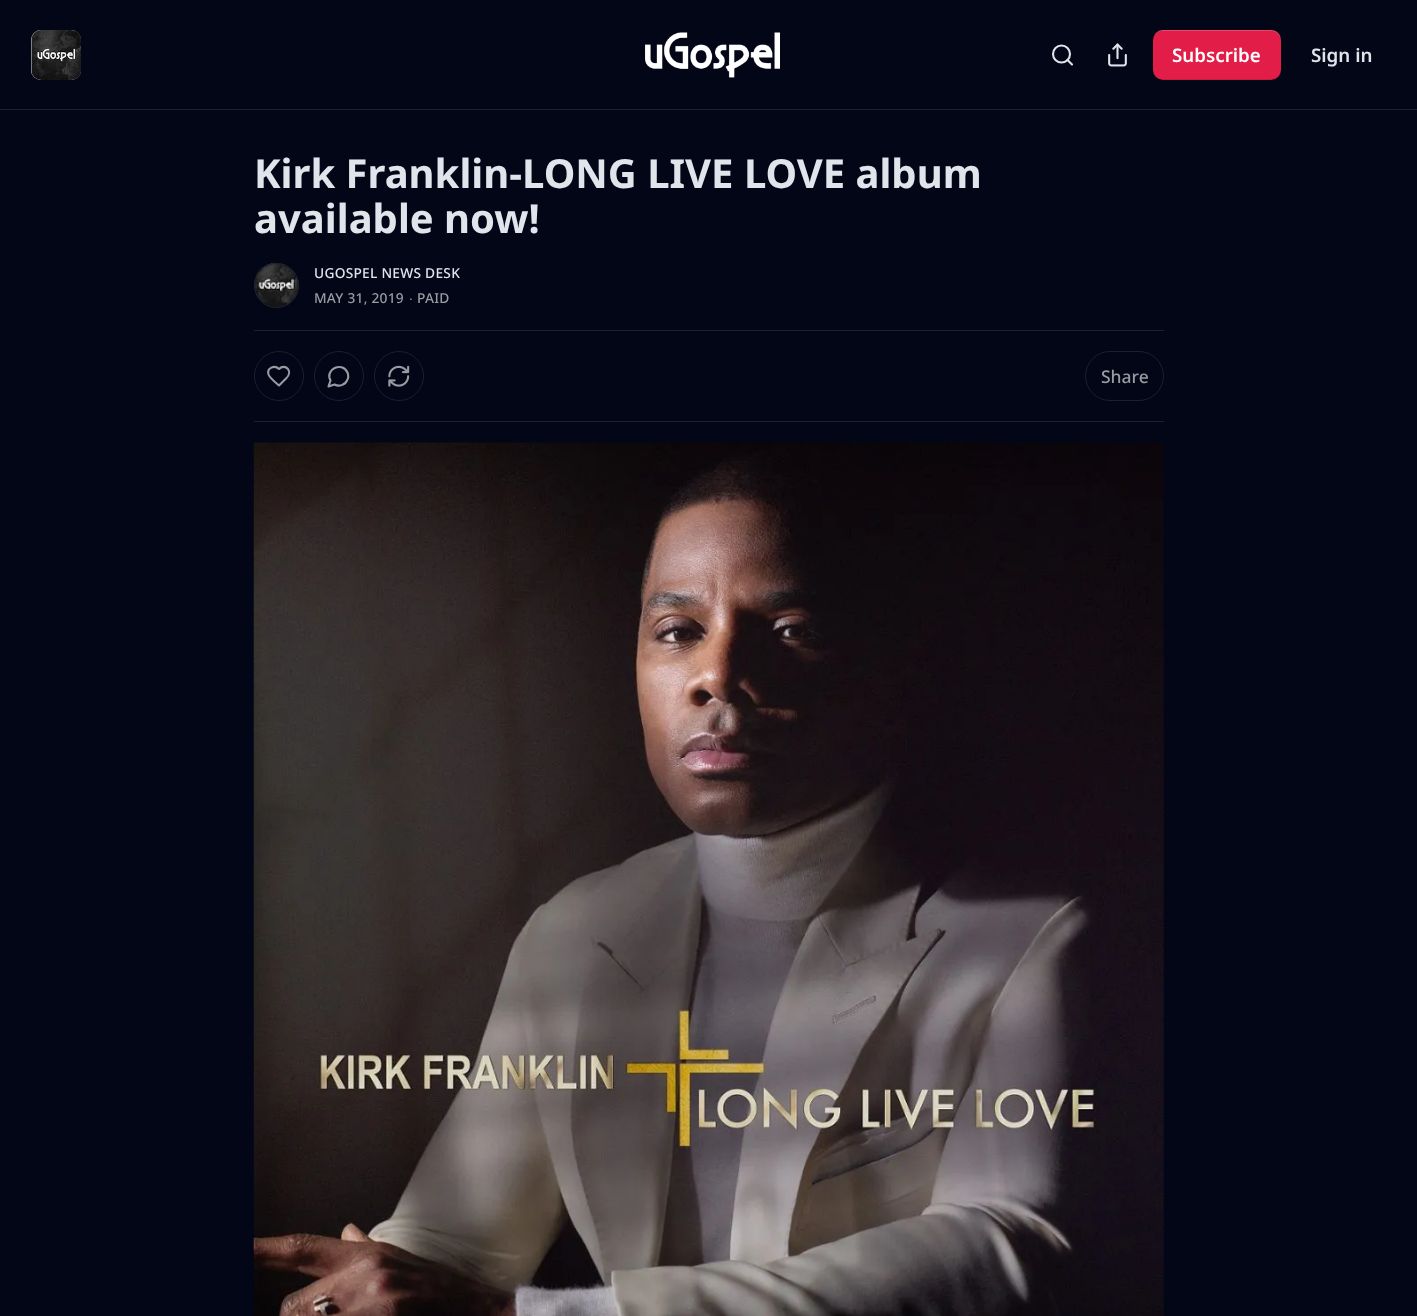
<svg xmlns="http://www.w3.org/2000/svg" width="1417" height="1316">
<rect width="100%" height="100%" fill="#020617"/>
<rect y="109" width="1417" height="1" fill="#1b1f2e"/>
<rect x="31" y="30" width="50" height="50" rx="10" fill="#fff"/>
<image x="31" y="30" width="50" height="50" href="media/1.png"/>
<image x="645" y="32" width="135" height="46" href="media/2.png"/>
<circle cx="1061.5" cy="54" r="8.5" fill="none" stroke="#e2e4ec" stroke-width="2.1"/>
<path d="M1072 64.5l-4.5-4.5" fill="none" stroke="#e2e4ec" stroke-width="2.1" stroke-linecap="round" stroke-linejoin="round"/>
<image x="1108" y="43" width="19" height="24" href="media/3.png"/>
<rect x="1153" y="30" width="128" height="50" rx="10" fill="#e11d48"/>
<path d="M1154 75c2 3 5 5 9 5h108c6 0 10-4 10-10v-1c0 5-4 10-10 10h-109c-3 0-6-2-8-4z" fill="#0000001a"/>
<path d="M1162 31h109c6 0 10 5 10 10v-1c0-6-4-10-10-10h-108c-4 0-7 2-9 5c2-2 5-4 8-4z" fill="#ffffff33"/>
<text x="1172" y="62" style="font-family:Noto Sans;font-size:18.75px;font-weight:600;fill:#fff">Subscribe</text>
<text x="1311" y="62" style="font-family:Noto Sans;font-size:18.75px;font-weight:600;fill:#e2e4ec">Sign in</text>
<text x="254" y="188" style="font-family:Noto Sans;font-size:40px;font-weight:bold;fill:#e2e4ec">Kirk Franklin-LONG LIVE LOVE album</text>
<text x="254" y="233" style="font-family:Noto Sans;font-size:40px;font-weight:bold;fill:#e2e4ec">available now!</text>
<circle cx="276.5" cy="285.5" r="22" fill="none" stroke="#1b1f2e"/>
<image x="254" y="263" width="45" height="44" href="media/4.png"/>
<circle cx="276.5" cy="285.5" r="22" fill="none" stroke="#1b1f2e"/>
<text x="314" y="278" style="font-family:Noto Sans;font-size:13.75px;font-weight:500;letter-spacing:0.25px;fill:#e2e4ec">UGOSPEL NEWS DESK</text>
<text x="314" y="303" style="font-family:Noto Sans;font-size:13.75px;font-weight:500;letter-spacing:0.25px;fill:#9a9ba2">MAY 31, 2019</text>
<text x="409" y="303" style="font-family:Liberation Sans;font-size:13.75px;letter-spacing:0.25px;fill:#9a9ba2">∙</text>
<text x="417" y="303" style="font-family:Noto Sans;font-size:13.75px;font-weight:500;letter-spacing:0.25px;fill:#9a9ba2">PAID</text>
<rect x="254" y="330" width="910" height="1" fill="#1b1f2e"/>
<rect x="254" y="421" width="910" height="1" fill="#1b1f2e"/>
<circle cx="279" cy="376" r="24.5" fill="none" stroke="#1b1f2e"/>
<path d="M286 378.5c8-7.5-1-15.5-7-9.5c-4.5-4.5-12.5-1-10.5 5.5c1 3 7.5 8.5 10.5 11z" fill="none" stroke="#9a9ba2" stroke-width="2.1" stroke-linecap="round" stroke-linejoin="round"/>
<circle cx="339" cy="376" r="24.5" fill="none" stroke="#1b1f2e"/>
<path d="M334.5 384.5c4.5 2.5 10.5 .5 12.5-4c1.5-2.5 1.5-5.5 .5-8c-5.5-11.5-23-3-17 8l-2 6z" fill="none" stroke="#9a9ba2" stroke-width="2.1" stroke-linecap="round" stroke-linejoin="round"/>
<circle cx="399" cy="376" r="24.5" fill="none" stroke="#1b1f2e"/>
<image x="388" y="365" width="22" height="22" href="media/5.png"/>
<rect x="1085.5" y="351.5" width="78" height="49" rx="24.5" fill="none" stroke="#1b1f2e"/>
<text x="1101" y="383" style="font-family:Noto Sans;font-size:17.5px;font-weight:500;fill:#9a9ba2">Share</text>
<image x="253" y="442" width="911" height="874" href="media/6.png"/>
</svg>
